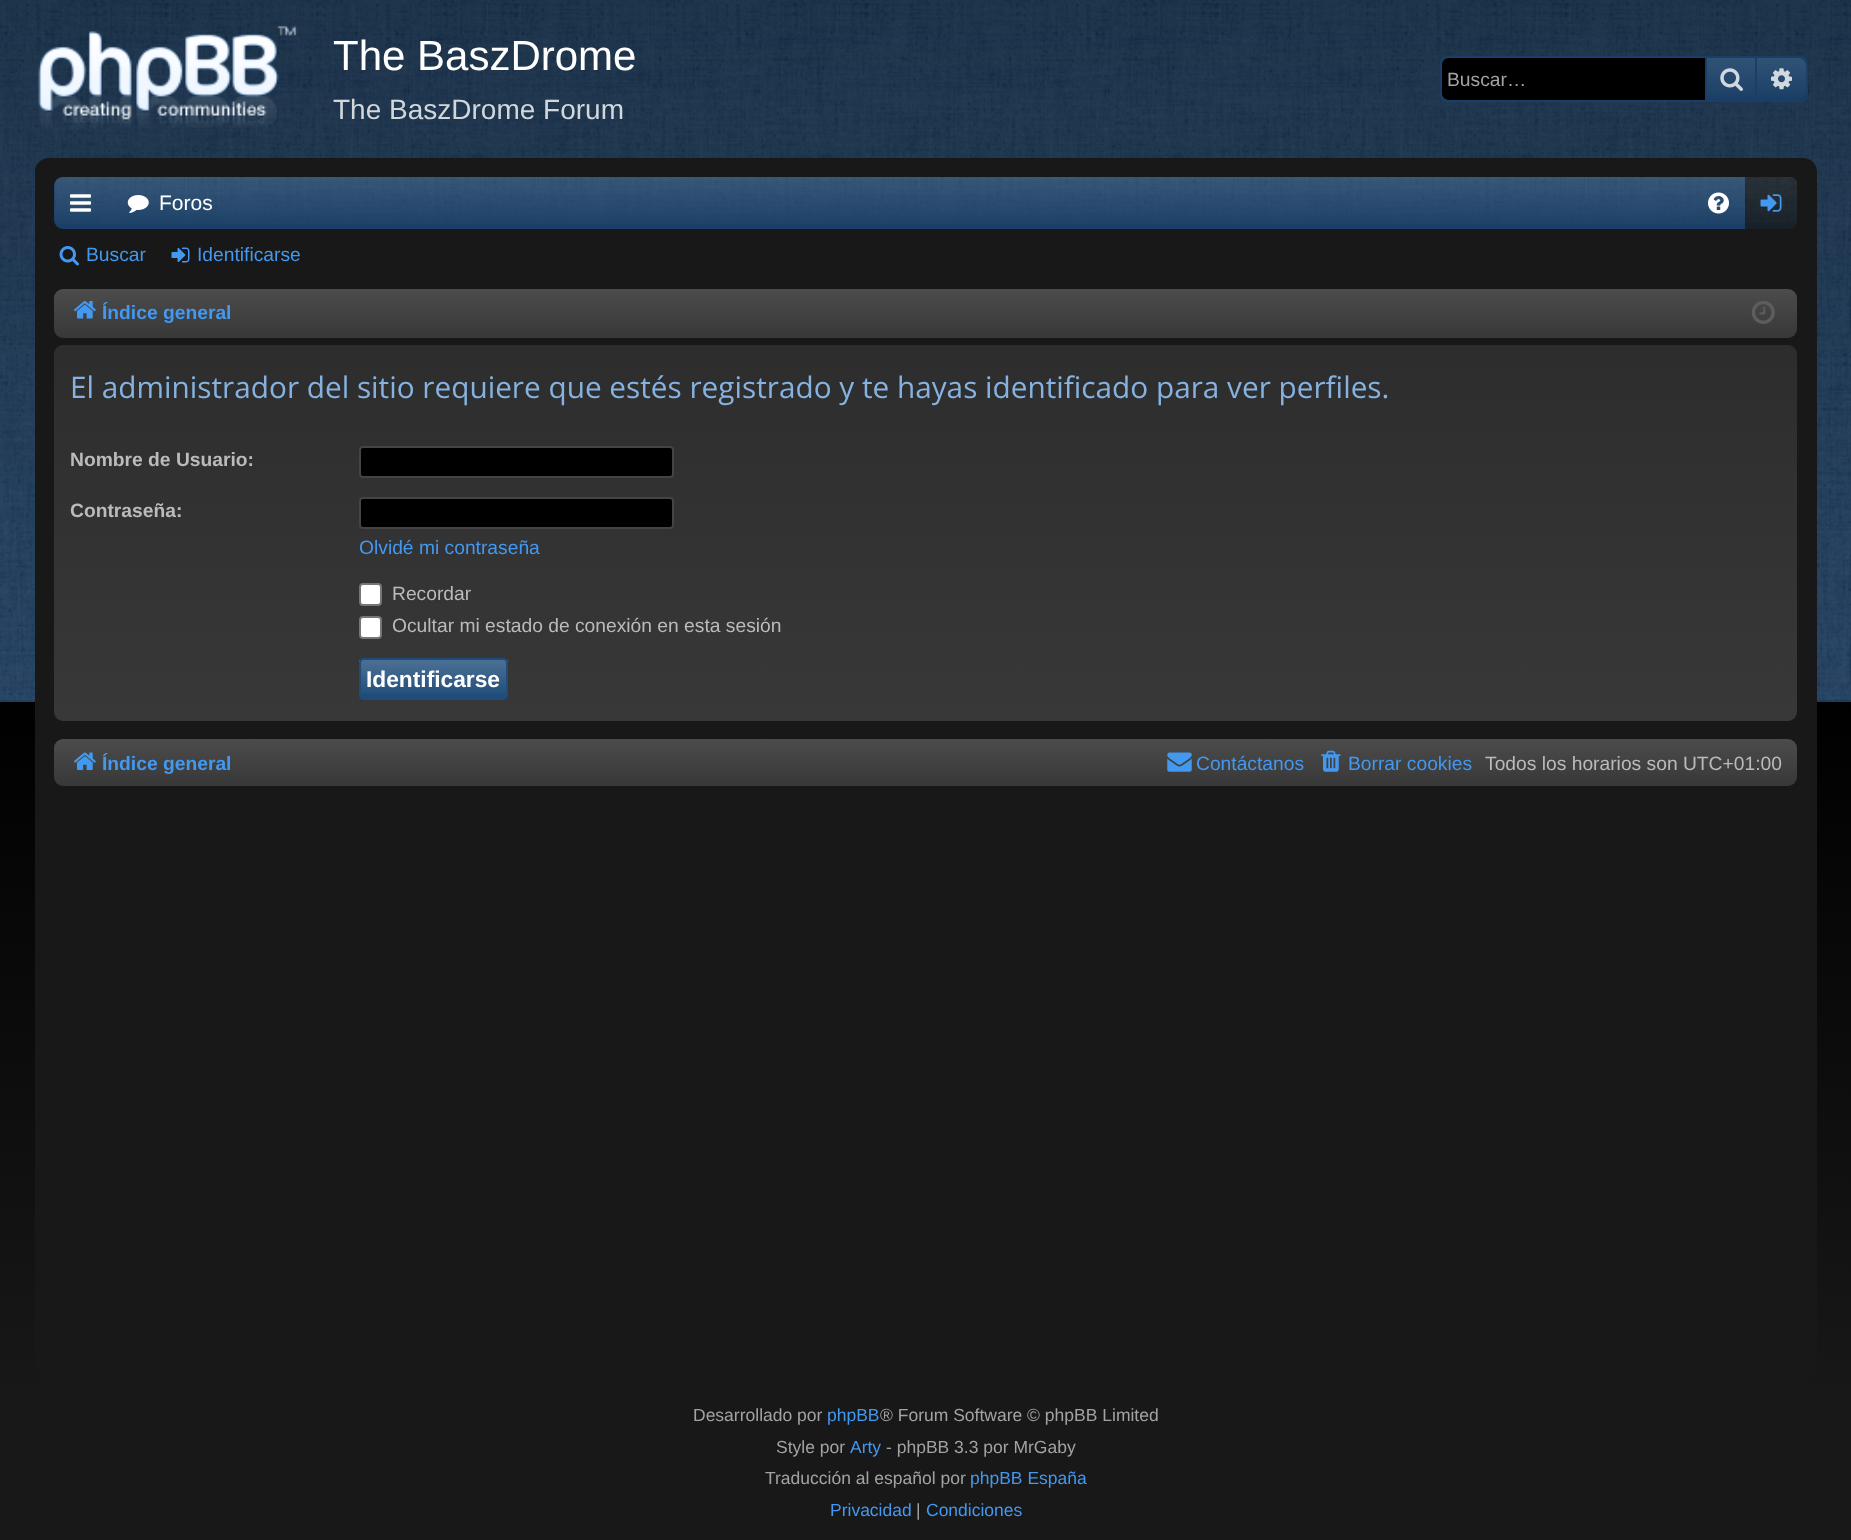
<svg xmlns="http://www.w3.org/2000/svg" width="1851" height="1540">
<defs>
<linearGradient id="g1" gradientUnits="userSpaceOnUse" x1="926" y1="0" x2="926" y2="1540"><stop offset="0" stop-color="#000"/><stop offset="0.45" stop-color="#000"/><stop offset="0.91" stop-color="#181818"/></linearGradient>
<linearGradient id="g2" gradientUnits="userSpaceOnUse" x1="1731" y1="58" x2="1731" y2="100"><stop offset="0" stop-color="#315275"/><stop offset="1" stop-color="#1a3f66"/></linearGradient>
<linearGradient id="g3" gradientUnits="userSpaceOnUse" x1="1782" y1="58" x2="1782" y2="100"><stop offset="0" stop-color="#fff" stop-opacity="0.1"/><stop offset="1" stop-color="#fff" stop-opacity="0"/></linearGradient>
<linearGradient id="g4" gradientUnits="userSpaceOnUse" x1="926" y1="289" x2="926" y2="338"><stop offset="0" stop-color="#fff" stop-opacity="0.1"/><stop offset="1" stop-color="#fff" stop-opacity="0"/></linearGradient>
<linearGradient id="g5" gradientUnits="userSpaceOnUse" x1="926" y1="345" x2="926" y2="721"><stop offset="0" stop-color="#000" stop-opacity="0.2"/><stop offset="1" stop-color="#000" stop-opacity="0"/></linearGradient>
<linearGradient id="g6" gradientUnits="userSpaceOnUse" x1="433" y1="660" x2="433" y2="698"><stop offset="0" stop-color="#fff" stop-opacity="0.2"/><stop offset="1" stop-color="#fff" stop-opacity="0"/></linearGradient>
<linearGradient id="g7" gradientUnits="userSpaceOnUse" x1="926" y1="738" x2="926" y2="786"><stop offset="0" stop-color="#fff" stop-opacity="0.1"/><stop offset="1" stop-color="#fff" stop-opacity="0"/></linearGradient>
</defs>
<rect width="100%" height="100%" fill="#fff"/>
<rect y="702" width="1851" height="838" fill="url(#g1)"/>
<rect width="1851" height="702" fill="#1a3a5c"/>
<image x="0" y="0" width="1851" height="702" href="media/1.png"/>
<rect y="700" width="1851" height="2" fill="#1065bc33"/>
<image x="38" y="25" width="259" height="103" href="media/2.png"/>
<text x="333" y="70" style="font-family:Liberation Sans;font-size:42px;fill:#fff">The BaszDrome</text>
<text x="333" y="119" style="font-family:Liberation Sans;font-size:28px;fill:#d2d7dc">The BaszDrome Forum</text>
<rect x="1441" y="57" width="366" height="44" rx="6" fill="none" stroke="#1a3f66" stroke-width="2"/>
<path d="M1449 58h256v42h-256c-4 0-7-3-7-7v-28c0-4 3-7 7-7z" fill="#000"/>
<text x="1447" y="86" style="font-family:Liberation Sans;font-size:19.25px;fill:#a3a3a3">Buscar…</text>
<rect x="1707" y="58" width="48" height="42" fill="url(#g2)"/>
<rect x="1755" y="58" width="2" height="42" fill="#1a3f66"/>
<rect x="1705" y="58" width="2" height="42" fill="#1a3f66"/>
<image x="1720" y="68" width="23" height="23" href="media/3.png"/>
<path d="M1757 58h42c4 0 7 3 7 7v28c0 4-3 7-7 7h-42z" fill="#1a3f66"/>
<path d="M1757 58h42c4 0 7 3 7 7v28c0 4-3 7-7 7h-42z" fill="url(#g3)"/>
<image x="1771" y="68" width="21" height="22" href="media/4.png"/>
<rect x="36" y="159" width="1780" height="1223" rx="13" fill="#181818" stroke="#181818" stroke-width="2"/>
<rect x="54" y="177" width="1743" height="52" rx="9" fill="#1a3f66"/>
<image x="54" y="177" width="1743" height="47" href="media/5.png"/>
<image x="70" y="194" width="21" height="18" href="media/6.png"/>
<image x="127" y="195" width="22" height="18" href="media/7.png"/>
<text x="159" y="210" style="font-family:Liberation Sans;font-size:21px;fill:#fff">Foros</text>
<image x="1708" y="192" width="21" height="22" href="media/8.png"/>
<path d="M1745 177h45c4 0 7 3 7 7v38c0 4-3 7-7 7h-45z" fill="#182028"/>
<image x="1745" y="177" width="52" height="46" href="media/9.png"/>
<image x="1760" y="194" width="22" height="18" href="media/10.png"/>
<image x="59" y="246" width="20" height="20" href="media/11.png"/>
<text x="86" y="261" style="font-family:Liberation Sans;font-size:19.25px;fill:#4398ef">Buscar</text>
<image x="171" y="247" width="19" height="16" href="media/12.png"/>
<text x="197" y="261" style="font-family:Liberation Sans;font-size:19.25px;fill:#4398ef">Identificarse</text>
<rect x="54" y="289" width="1743" height="49" rx="9" fill="#383838"/>
<rect x="54" y="289" width="1743" height="49" rx="9" fill="url(#g4)"/>
<image x="73" y="301" width="23" height="18" href="media/13.png"/>
<text x="102" y="319" style="font-family:Liberation Sans;font-size:19.25px;font-weight:bold;fill:#4398ef">Índice general</text>
<image x="1751" y="301" width="24" height="23" href="media/14.png"/>
<rect x="54" y="345" width="1743" height="376" rx="9" fill="#383838"/>
<rect x="54" y="345" width="1743" height="376" rx="9" fill="url(#g5)"/>
<text x="70" y="398" style="font-family:Open Sans;font-size:29.75px;fill:#85b2e0">El administrador del sitio requiere que estés registrado y te hayas identificado para ver perfiles.</text>
<text x="70" y="466" style="font-family:Liberation Sans;font-size:19.25px;font-weight:bold;fill:#bbb">Nombre de Usuario:</text>
<rect x="360" y="447" width="313" height="30" rx="3" fill="#000" stroke="#444" stroke-width="2"/>
<text x="70" y="517" style="font-family:Liberation Sans;font-size:19.25px;font-weight:bold;fill:#bbb">Contraseña:</text>
<rect x="360" y="498" width="313" height="30" rx="3" fill="#000" stroke="#444" stroke-width="2"/>
<text x="359" y="554" style="font-family:Liberation Sans;font-size:19.25px;fill:#4398ef">Olvidé mi contraseña</text>
<rect x="360" y="584" width="21" height="21" rx="3" fill="#fff" stroke="#767676" stroke-width="2"/>
<text x="392" y="600" style="font-family:Liberation Sans;font-size:19.25px;fill:#bbb">Recordar</text>
<rect x="360" y="617" width="21" height="21" rx="3" fill="#fff" stroke="#767676" stroke-width="2"/>
<text x="392" y="632" style="font-family:Liberation Sans;font-size:19.25px;fill:#bbb">Ocultar mi estado de conexión en esta sesión</text>
<rect x="359" y="658" width="149" height="42" rx="5" fill="#1f4c7a"/>
<rect x="359" y="660" width="149" height="34" fill="url(#g6)"/>
<rect x="360" y="659" width="147" height="40" rx="4" fill="none" stroke="#1f4c7a" stroke-width="2"/>
<text x="366" y="687" style="font-family:Liberation Sans;font-size:22.75px;font-weight:bold;fill:#fff">Identificarse</text>
<rect x="54" y="739" width="1743" height="47" rx="9" fill="#383838"/>
<rect x="54" y="739" width="1743" height="47" rx="9" fill="url(#g7)"/>
<image x="73" y="752" width="23" height="18" href="media/15.png"/>
<text x="102" y="770" style="font-family:Liberation Sans;font-size:19.25px;font-weight:bold;fill:#4398ef">Índice general</text>
<image x="1167" y="752" width="25" height="20" href="media/16.png"/>
<text x="1196" y="770" style="font-family:Liberation Sans;font-size:19.25px;fill:#4398ef">Contáctanos</text>
<image x="1321" y="750" width="20" height="22" href="media/17.png"/>
<text x="1348" y="770" style="font-family:Liberation Sans;font-size:19.25px;fill:#4398ef">Borrar cookies</text>
<text x="1485" y="770" style="font-family:Liberation Sans;font-size:19.25px;fill:#bbb">Todos los horarios son UTC+01:00</text>
<text x="693" y="1421" style="font-family:Liberation Sans;font-size:17.5px;fill:#a3a3a3">Desarrollado por</text>
<text x="827" y="1421" style="font-family:Liberation Sans;font-size:17.5px;fill:#4398ef">phpBB</text>
<text x="880" y="1421" style="font-family:Liberation Sans;font-size:17.5px;fill:#a3a3a3">® Forum Software © phpBB Limited</text>
<text x="776" y="1453" style="font-family:Liberation Sans;font-size:17.5px;fill:#a3a3a3">Style por</text>
<text x="850" y="1453" style="font-family:Liberation Sans;font-size:17.5px;fill:#4398ef">Arty</text>
<text x="886" y="1453" style="font-family:Liberation Sans;font-size:17.5px;fill:#a3a3a3">- phpBB 3.3 por MrGaby</text>
<text x="765" y="1484" style="font-family:Liberation Sans;font-size:17.5px;fill:#a3a3a3">Traducción al español por</text>
<text x="970" y="1484" style="font-family:Liberation Sans;font-size:17.5px;fill:#4398ef">phpBB España</text>
<text x="830" y="1516" style="font-family:Liberation Sans;font-size:17.5px;fill:#4398ef">Privacidad</text>
<text x="916" y="1516" style="font-family:Liberation Sans;font-size:17.5px;fill:#a3a3a3">|</text>
<text x="926" y="1516" style="font-family:Liberation Sans;font-size:17.5px;fill:#4398ef">Condiciones</text>
</svg>
